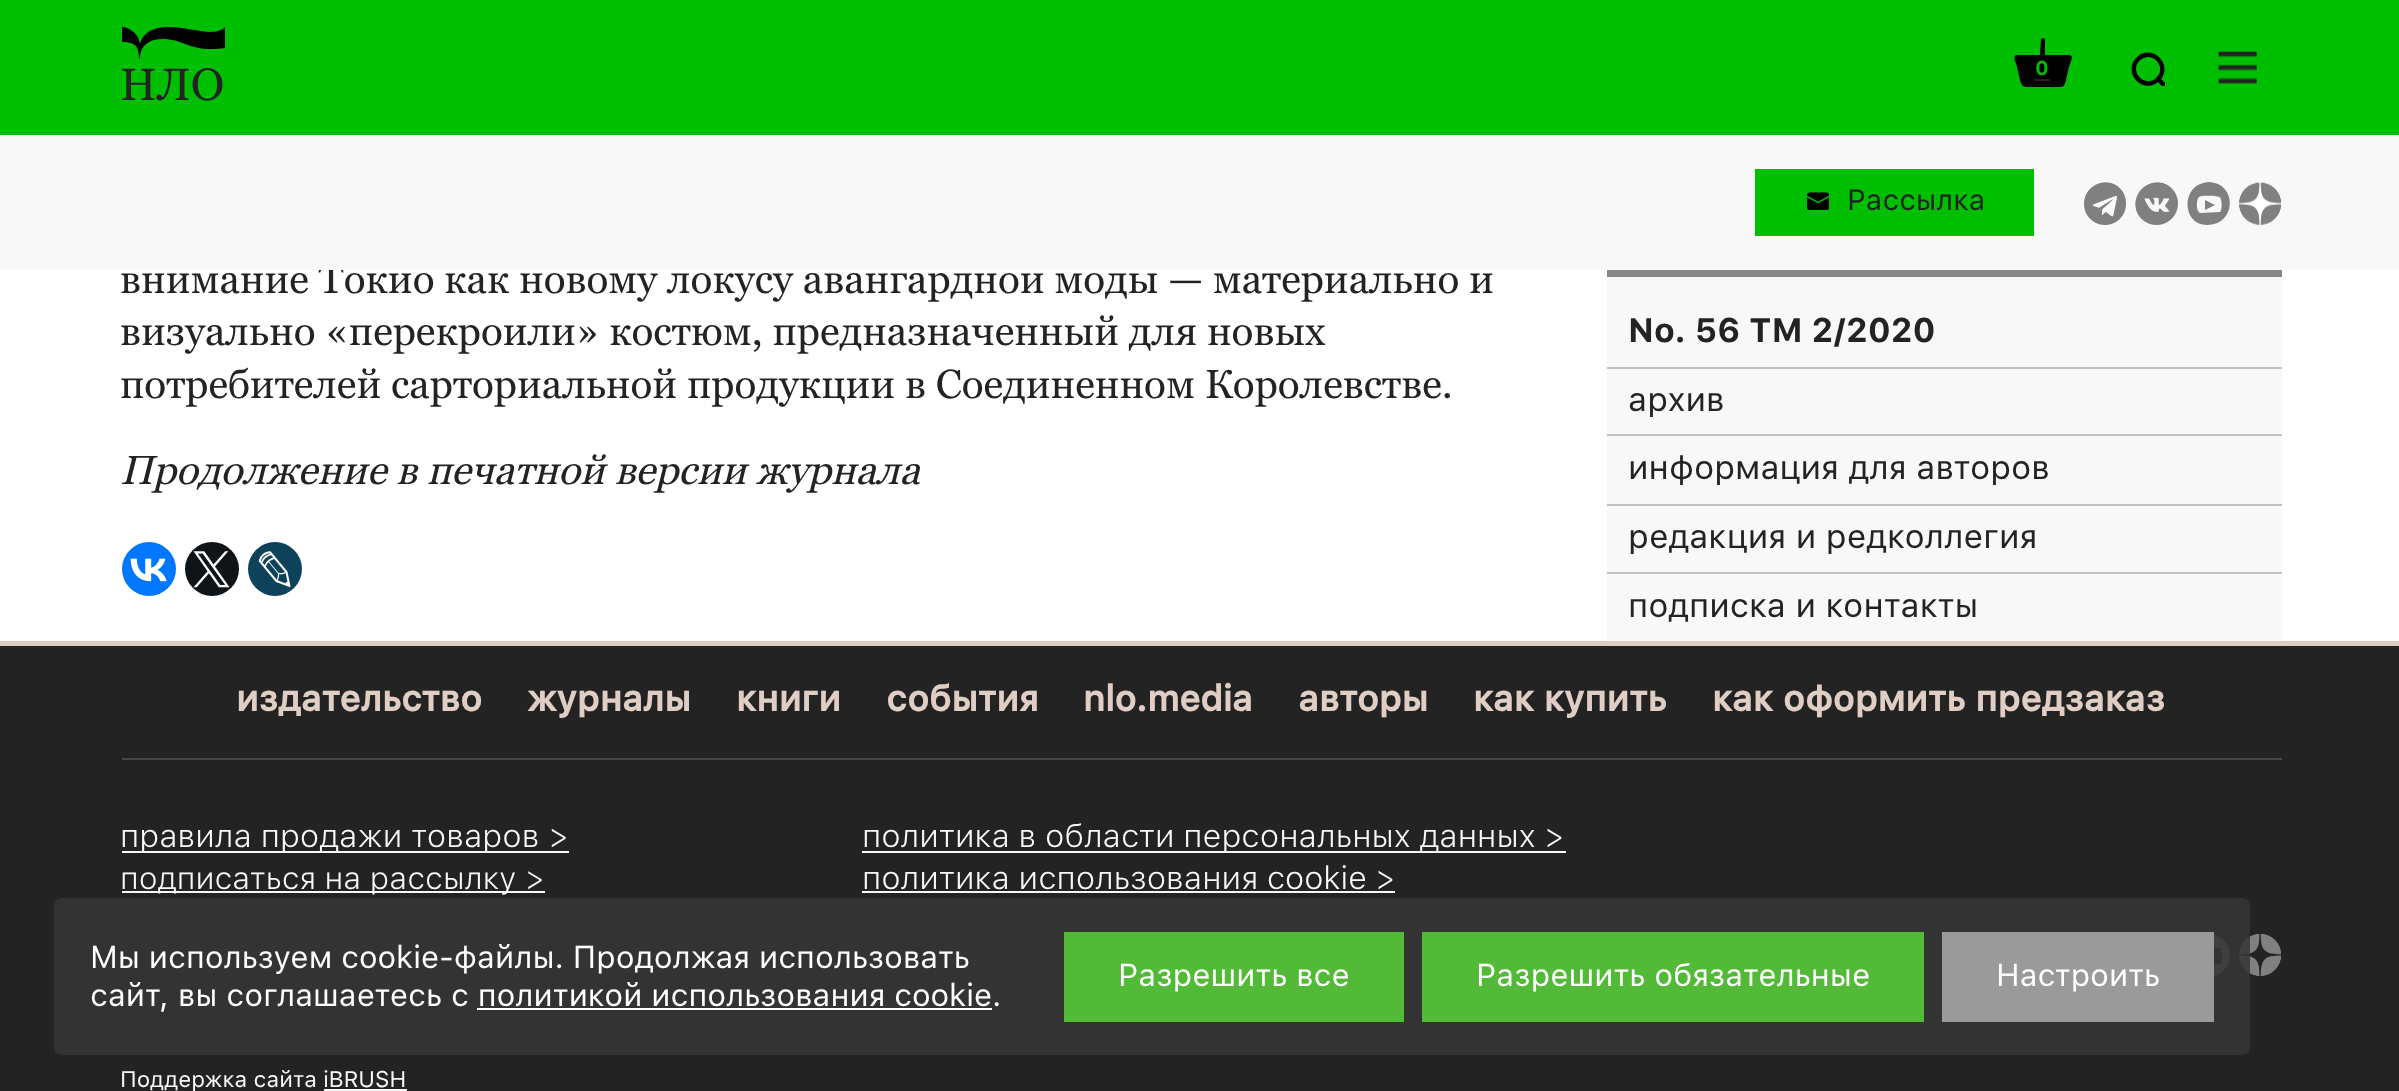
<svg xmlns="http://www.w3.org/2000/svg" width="2399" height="1091">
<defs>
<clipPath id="clip1"><rect x="2129" y="50" width="36" height="36"/></clipPath>
</defs>
<rect width="100%" height="100%" fill="#fff"/>
<rect width="2399" height="135" fill="#00be00"/>
<path d="M225 48c-34 5-41-9-62-9c-25 0-23 20-23 20h-1c0-11-2-17-17-17v-15c6 0 17 6 18 17c1-3 4-17 29-17c21 0 46 11 56 0z" fill="#000"/>
<text x="120" y="100" style="font-family:Georgia;font-size:45px;fill:#232323">НЛО</text>
<path d="M2026 87c-4 0-5-4-6-7l-4-17c-1-2-3-6 0-8h24l1-16c1-1 3-1 4 0v16h20c10 0 7 2 4 12l-3 13c-2 8-3 7-12 7z" fill="#000"/>
<text x="2035" y="75" style="font-family:'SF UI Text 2';font-size:20px;font-weight:bold;fill:#00be00">0</text>
<rect x="2034" y="79" width="16" height="2" fill="#232323"/>
<g clip-path="url(#clip1)">
<path d="M2166 87l-8-8m0 0c10-9.5 1-26.5-12.5-24c-3 .5-5.5 2-7.5 4c-13 14 7 33.5 20 20z" fill="none" stroke="#000" stroke-width="4.5" stroke-linecap="round" stroke-linejoin="round"/>
</g>
<image x="2218" y="51" width="39" height="33" href="media/1.png"/>
<text x="120" y="293" style="font-family:Georgia;font-size:40.5px;fill:#232323">внимание Токио как новому локусу авангардной моды — материально и</text>
<rect y="135" width="2399" height="135" fill="#f8f8f8"/>
<rect x="1755" y="169" width="279" height="67" fill="#00be00"/>
<image x="1807" y="192" width="22" height="18" href="media/2.png"/>
<text x="1847" y="210" style="font-family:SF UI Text;font-size:29.25px;fill:#232323">Рассылка</text>
<image x="2084" y="182" width="42" height="43" href="media/3.png"/>
<image x="2135" y="182" width="43" height="43" href="media/4.png"/>
<path d="M2209 182c28 1 28 42-1 43c-27 1-28-42 1-43zm-9 31l20-1c2-1 2-10 1-12c0-2-1-3-2-3c-2-1-17-2-20 0c-3 2-3 15 1 16zm15-8l-10-5v10z" fill="#808080" fill-rule="evenodd"/>
<image x="2239" y="182" width="42" height="43" href="media/5.png"/>
<text x="120" y="345" style="font-family:Georgia;font-size:40.5px;fill:#232323">визуально «перекроили» костюм, предназначенный для новых</text>
<text x="120" y="398" style="font-family:Georgia;font-size:40.5px;fill:#232323">потребителей сарториальной продукции в Соединенном Королевстве.</text>
<text x="120" y="484" style="font-family:Georgia;font-size:40.5px;font-style:italic;fill:#232323">Продолжение в печатной версии журнала</text>
<circle cx="149" cy="569" r="27" fill="#07f"/>
<image x="130" y="558" width="37" height="24" href="media/6.png"/>
<circle cx="212" cy="569" r="27" fill="#0f1419"/>
<image x="193" y="551" width="37" height="37" href="media/7.png"/>
<circle cx="275" cy="569" r="27" fill="#0d425a"/>
<image x="258" y="551" width="33" height="37" href="media/8.png"/>
<rect x="1607" y="277" width="675" height="364" fill="#f8f8f8"/>
<rect x="1607" y="270" width="675" height="7" fill="#878787"/>
<rect x="1607" y="367" width="675" height="2" fill="#c0c0c0"/>
<text x="1628" y="342" style="font-family:'SF UI Text 2';font-size:33.75px;font-weight:bold;fill:#232323">No. 56 ТМ 2/2020</text>
<rect x="1607" y="434" width="675" height="2" fill="#c0c0c0"/>
<text x="1628" y="411" style="font-family:SF UI Text;font-size:33.75px;fill:#232323">архив</text>
<rect x="1607" y="504" width="675" height="2" fill="#c0c0c0"/>
<text x="1628" y="479" style="font-family:SF UI Text;font-size:33.75px;fill:#232323">информация для авторов</text>
<rect x="1607" y="572" width="675" height="2" fill="#c0c0c0"/>
<text x="1628" y="548" style="font-family:SF UI Text;font-size:33.75px;fill:#232323">редакция и редколлегия</text>
<text x="1628" y="617" style="font-family:SF UI Text;font-size:33.75px;fill:#232323">подписка и контакты</text>
<rect y="646" width="2399" height="445" fill="#232323"/>
<rect y="641" width="2399" height="5" fill="#e0cec4"/>
<text x="236" y="711" style="font-family:SF UI Text;font-size:36px;font-weight:bold;fill:#e0cec4">издательство</text>
<text x="527" y="711" style="font-family:SF UI Text;font-size:36px;font-weight:bold;fill:#e0cec4">журналы</text>
<text x="736" y="711" style="font-family:SF UI Text;font-size:36px;font-weight:bold;fill:#e0cec4">книги</text>
<text x="886" y="711" style="font-family:SF UI Text;font-size:36px;font-weight:bold;fill:#e0cec4">события</text>
<text x="1083" y="711" style="font-family:SF UI Text;font-size:36px;font-weight:bold;fill:#e0cec4">nlo.media</text>
<text x="1298" y="711" style="font-family:SF UI Text;font-size:36px;font-weight:bold;fill:#e0cec4">авторы</text>
<text x="1473" y="711" style="font-family:SF UI Text;font-size:36px;font-weight:bold;fill:#e0cec4">как купить</text>
<text x="1712" y="711" style="font-family:SF UI Text;font-size:36px;font-weight:bold;fill:#e0cec4">как оформить предзаказ</text>
<rect x="122" y="758" width="2160" height="2" fill="#464646"/>
<rect x="122" y="851" width="447" height="2" fill="#f8f8f8"/>
<text x="120" y="847" style="font-family:SF UI Text;font-size:32.4px;font-weight:300;fill:#f8f8f8">правила продажи товаров &gt;</text>
<rect x="122" y="891" width="423" height="2" fill="#f8f8f8"/>
<text x="120" y="889" style="font-family:SF UI Text;font-size:31.5px;font-weight:300;fill:#f8f8f8">подписаться на рассылку &gt;</text>
<rect x="862" y="851" width="704" height="2" fill="#f8f8f8"/>
<text x="862" y="847" style="font-family:SF UI Text;font-size:32.4px;font-weight:300;fill:#f8f8f8">политика в области персональных данных</text>
<text x="1544" y="847" style="font-family:SF UI Text;font-size:32.4px;font-weight:300;fill:#f8f8f8">&gt;</text>
<text x="862" y="889" style="font-family:SF UI Text;font-size:32.4px;font-weight:300;fill:#f8f8f8">политика использования cookie</text>
<text x="1375" y="889" style="font-family:SF UI Text;font-size:32.4px;font-weight:300;fill:#f8f8f8">&gt;</text>
<rect x="862" y="891" width="533" height="2" fill="#f8f8f8"/>
<text x="120" y="1087" style="font-family:SF UI Text;font-size:22.5px;fill:#f8f8f8">Поддержка сайта iBRUSH</text>
<rect x="324" y="1089" width="83" height="2" fill="#f8f8f8"/>
<path d="M2209 934c28 1 28 42-1 43c-27 1-28-42 1-43zm-9 30c6 1 11 1 17 0h3c1-1 2-4 2-5c0-3 0-10-3-11c-1 0-18 0-20 1c-3 2-3 14 1 15zm15-8l-10-5v10z" fill="#808080" fill-rule="evenodd"/>
<image x="2239" y="934" width="42" height="42" href="media/9.png"/>
<rect x="54" y="898" width="2196" height="157" rx="7" fill="#353535e0"/>
<text x="90" y="968" style="font-family:SF UI Text;font-size:31.5px;fill:#fff">Мы используем cookie-файлы. Продолжая использовать</text>
<text x="90" y="1006" style="font-family:SF UI Text;font-size:31.5px;fill:#fff">сайт, вы соглашаетесь с политикой использования cookie.</text>
<rect x="477" y="1008" width="515" height="2" fill="#fff"/>
<rect x="1064" y="932" width="340" height="90" fill="#52ba36"/>
<text x="1118" y="986" style="font-family:SF UI Text;font-size:31.5px;fill:#fff">Разрешить все</text>
<rect x="1422" y="932" width="502" height="90" fill="#52ba36"/>
<text x="1476" y="986" style="font-family:SF UI Text;font-size:31.5px;fill:#fff">Разрешить обязательные</text>
<rect x="1942" y="932" width="272" height="90" fill="#9a9a9a"/>
<text x="1996" y="986" style="font-family:SF UI Text;font-size:31.5px;fill:#fff">Настроить</text>
</svg>
